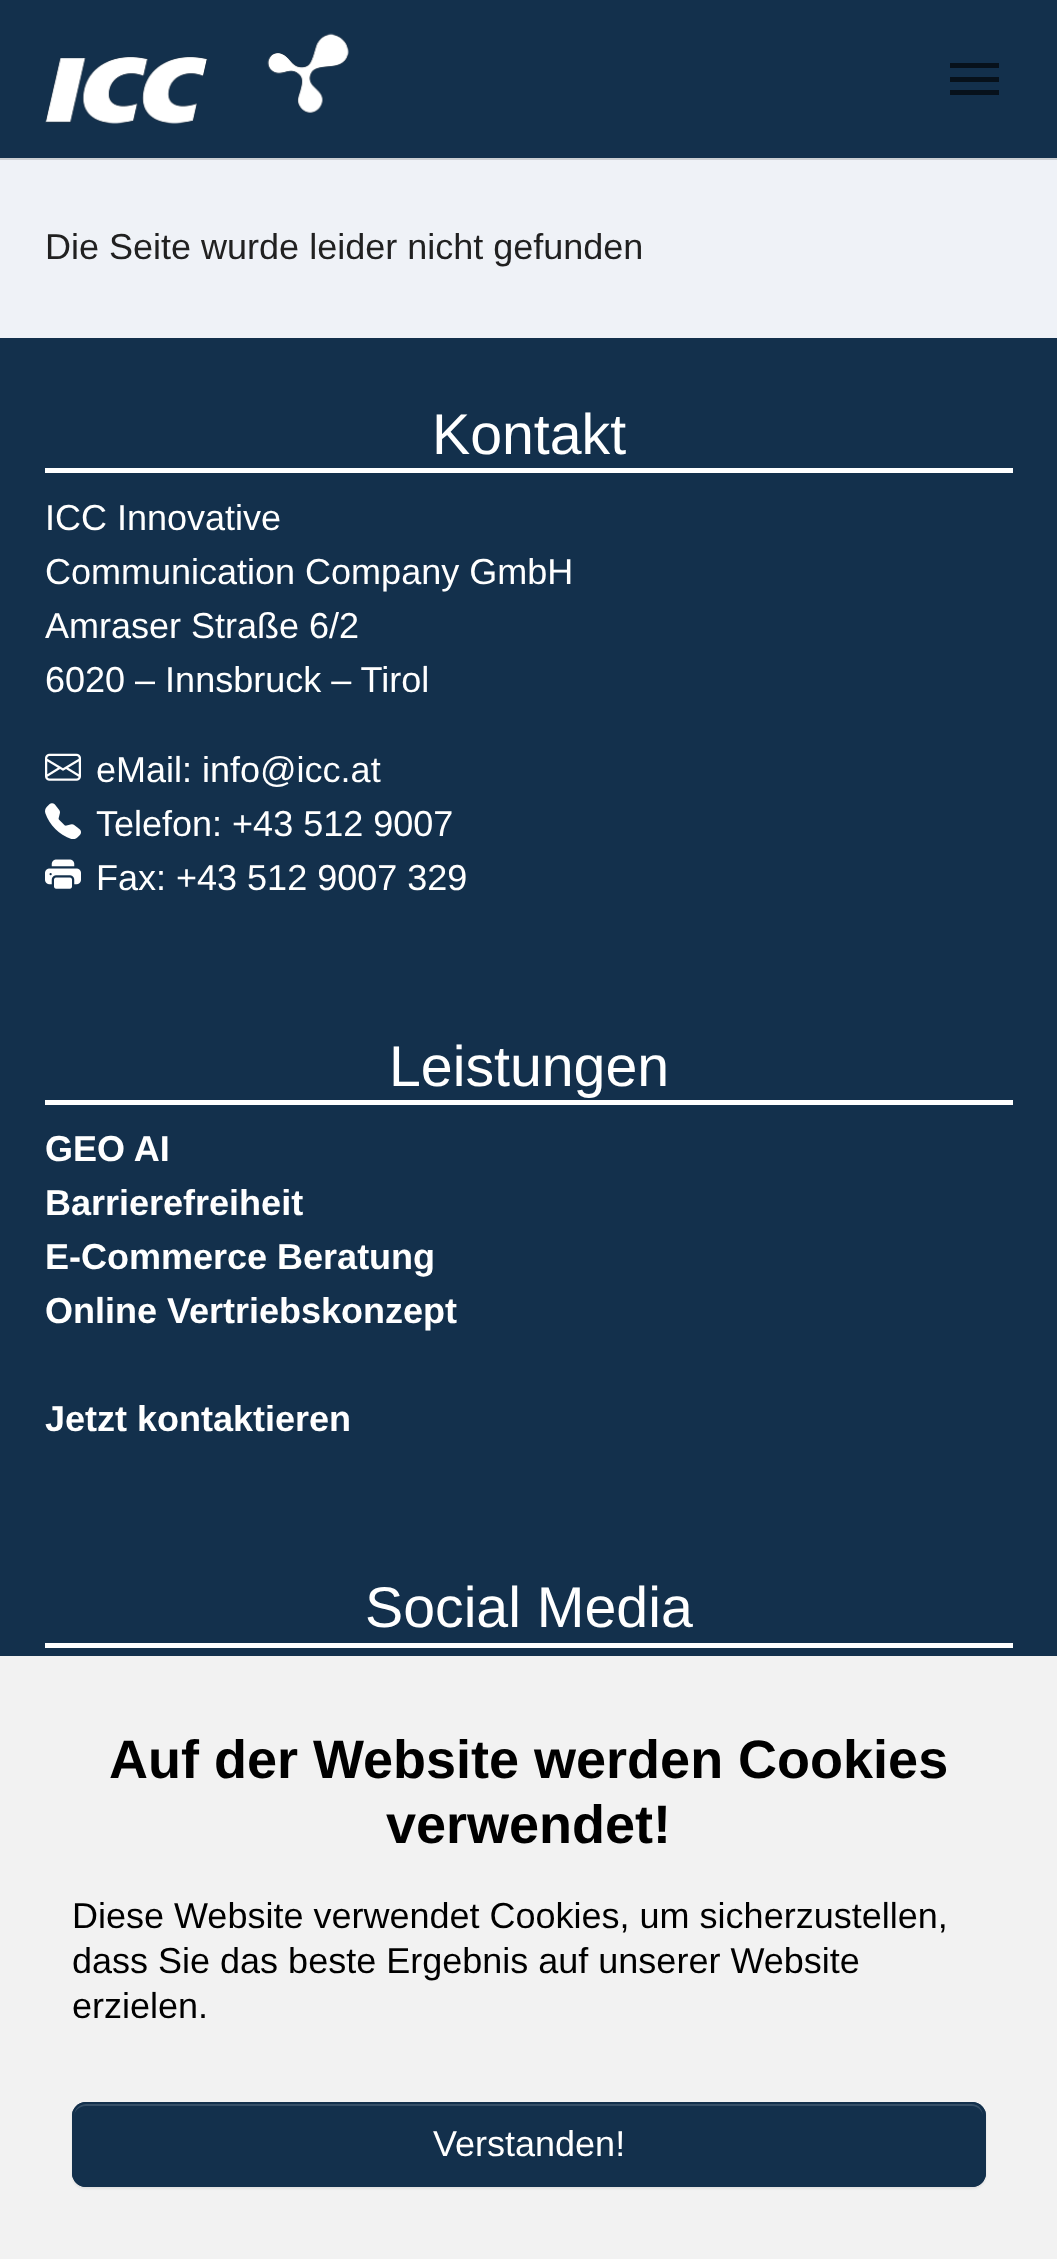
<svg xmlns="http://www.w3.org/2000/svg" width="1057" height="2259">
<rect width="100%" height="100%" fill="#eff2f7"/>
<path d="M0 158v2h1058v-158v156z" fill="#cbced2"/>
<rect width="1057" height="158" fill="#13304c"/>
<image x="45" y="33" width="304" height="91" href="media/1.png"/>
<rect x="950" y="77" width="49" height="5" fill="#07111b"/>
<rect x="950" y="63" width="49" height="5" fill="#07111b"/>
<rect x="950" y="90" width="49" height="5" fill="#07111b"/>
<text x="45" y="259" style="font-family:Liberation Sans;font-size:36px;fill:#212121">Die Seite wurde leider nicht gefunden</text>
<rect y="338" width="1057" height="1318" fill="#13304c"/>
<rect x="45" y="468" width="968" height="5" fill="#fff"/>
<text x="432" y="454" style="font-family:Liberation Sans;font-size:57.25px;fill:#fff">Kontakt</text>
<text x="45" y="530" style="font-family:Liberation Sans;font-size:36px;fill:#fff">ICC Innovative</text>
<text x="45" y="584" style="font-family:Liberation Sans;font-size:36px;fill:#fff">Communication Company GmbH</text>
<text x="45" y="638" style="font-family:Liberation Sans;font-size:36px;fill:#fff">Amraser Straße 6/2</text>
<text x="45" y="692" style="font-family:Liberation Sans;font-size:36px;fill:#fff">6020 – Innsbruck – Tirol</text>
<image x="45" y="753" width="36" height="28" href="media/2.png"/>
<text x="96" y="782" style="font-family:Liberation Sans;font-size:36px;fill:#fff">eMail: info@icc.at</text>
<image x="45" y="803" width="36" height="36" href="media/3.png"/>
<text x="96" y="836" style="font-family:Liberation Sans;font-size:36px;fill:#fff">Telefon: +43 512 9007</text>
<image x="45" y="859" width="36" height="30" href="media/4.png"/>
<text x="96" y="890" style="font-family:Liberation Sans;font-size:36px;fill:#fff">Fax: +43 512 9007 329</text>
<rect x="45" y="1100" width="968" height="5" fill="#fff"/>
<text x="389" y="1086" style="font-family:Liberation Sans;font-size:57.25px;fill:#fff">Leistungen</text>
<text x="45" y="1161" style="font-family:Liberation Sans;font-size:36px;font-weight:bold;fill:#fff">GEO AI</text>
<text x="45" y="1215" style="font-family:Liberation Sans;font-size:36px;font-weight:bold;fill:#fff">Barrierefreiheit</text>
<text x="45" y="1269" style="font-family:Liberation Sans;font-size:36px;font-weight:bold;fill:#fff">E-Commerce Beratung</text>
<text x="45" y="1323" style="font-family:Liberation Sans;font-size:36px;font-weight:bold;fill:#fff">Online Vertriebskonzept</text>
<text x="45" y="1431" style="font-family:Liberation Sans;font-size:36px;font-weight:bold;fill:#fff">Jetzt kontaktieren</text>
<rect x="45" y="1643" width="968" height="5" fill="#fff"/>
<text x="365" y="1627" style="font-family:Liberation Sans;font-size:57.25px;fill:#fff">Social Media</text>
<rect y="1656" width="1057" height="603" fill="#f2f2f2"/>
<text x="109" y="1778" style="font-family:Liberation Sans;font-size:54px;font-weight:bold;fill:#000">Auf der Website werden Cookies</text>
<text x="386" y="1843" style="font-family:Liberation Sans;font-size:54px;font-weight:bold;fill:#000">verwendet!</text>
<text x="72" y="1928" style="font-family:Liberation Sans;font-size:36px;fill:#000">Diese Website verwendet Cookies, um sicherzustellen,</text>
<text x="72" y="1973" style="font-family:Liberation Sans;font-size:36px;fill:#000">dass Sie das beste Ergebnis auf unserer Website</text>
<text x="72" y="2018" style="font-family:Liberation Sans;font-size:36px;fill:#000">erzielen.</text>
<rect x="72" y="2104" width="914" height="85" rx="14" fill="#00000012" filter="blur(1px)"/>
<rect x="72" y="2102" width="914" height="85" rx="14" fill="#13304c"/>
<path d="M86 2106h886c6 0 11 5 11 11c0-7-4-13-11-13h-887c-7 0-11 6-11 13c0-6 5-11 12-11z" fill="#364f67"/>
<rect x="73" y="2103" width="912" height="83" rx="13" fill="none" stroke="#13304c" stroke-width="2"/>
<text x="433" y="2156" style="font-family:Liberation Sans;font-size:36px;fill:#fff">Verstanden!</text>
</svg>
